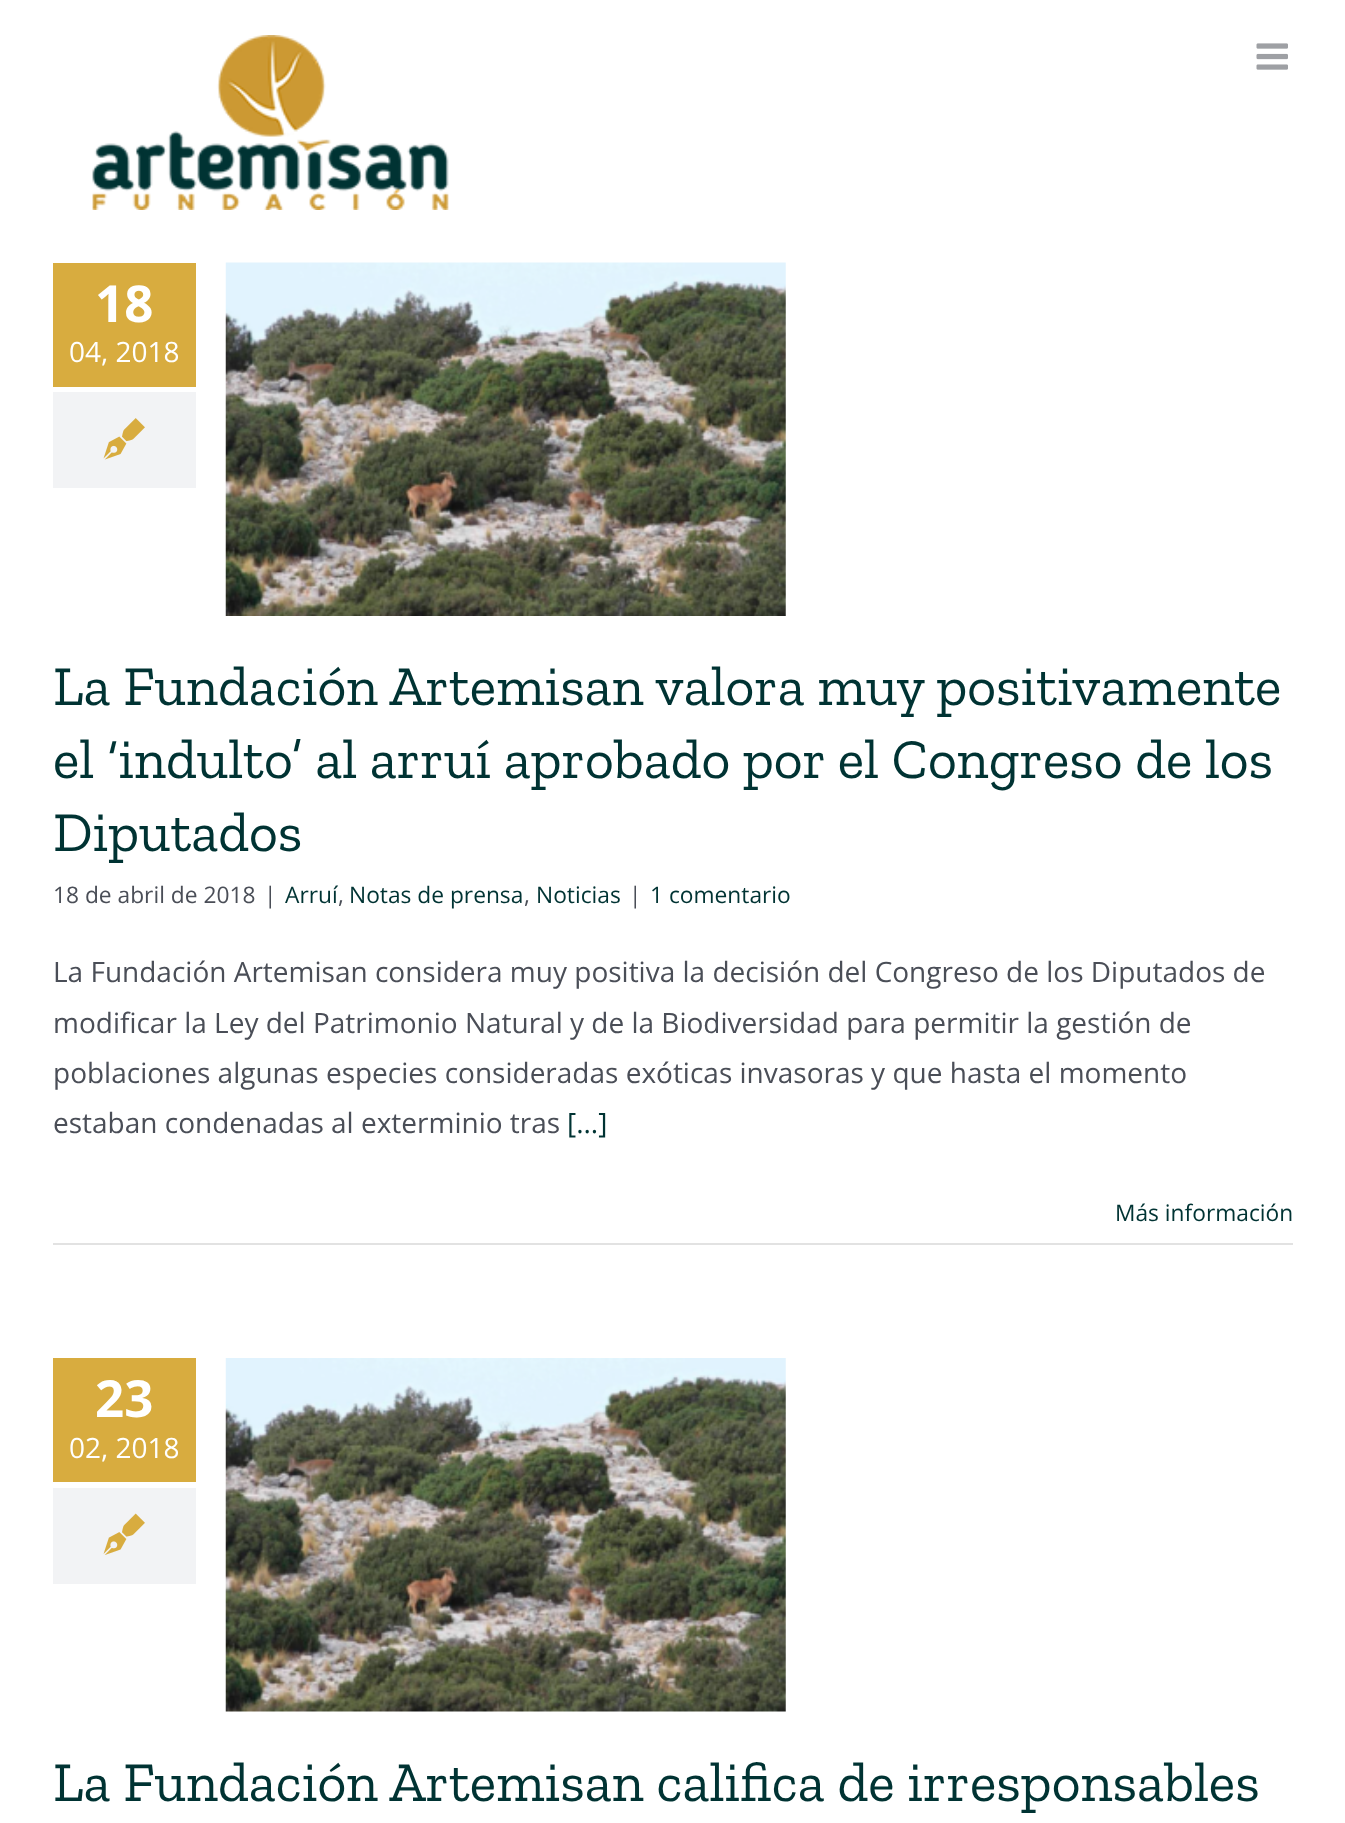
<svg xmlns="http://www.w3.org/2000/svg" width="1345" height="1823">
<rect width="100%" height="100%" fill="#fff"/>
<image x="92" y="35" width="357" height="175" href="media/1.png"/>
<image x="1256" y="43" width="32" height="27" href="media/2.png"/>
<rect x="53" y="263" width="143" height="124" fill="#d8ac3f"/>
<text x="95" y="322" style="font-family:Open Sans;font-size:51px;font-weight:bold;fill:#fff">18</text>
<text x="69" y="362" style="font-family:Open Sans;font-size:28px;fill:#fff">04, 2018</text>
<rect x="53" y="392" width="143" height="96" fill="#f2f3f5"/>
<image x="103" y="418" width="42" height="42" href="media/3.png"/>
<image x="225" y="262" width="561" height="354" href="media/4.png"/>
<text x="53" y="705" style="font-family:Zilla Slab;font-size:56px;fill:#033">La Fundación Artemisan valora muy positivamente</text>
<text x="53" y="778" style="font-family:Zilla Slab;font-size:56px;fill:#033">el ‘indulto’ al arruí aprobado por el Congreso de los</text>
<text x="53" y="851" style="font-family:Zilla Slab;font-size:56px;fill:#033">Diputados</text>
<text x="53" y="903" style="font-family:Open Sans;font-size:22.75px;fill:#4a4e57">18 de abril de 2018</text>
<text x="264" y="903" style="font-family:Open Sans;font-size:22.75px;fill:#4a4e57">|</text>
<text x="285" y="903" style="font-family:Open Sans;font-size:22.75px;fill:#033">Arruí</text>
<text x="338" y="903" style="font-family:Open Sans;font-size:22.75px;fill:#4a4e57">,</text>
<text x="349" y="903" style="font-family:Open Sans;font-size:22.75px;fill:#033">Notas de prensa</text>
<text x="524" y="903" style="font-family:Open Sans;font-size:22.75px;fill:#4a4e57">,</text>
<text x="536" y="903" style="font-family:Open Sans;font-size:22.75px;fill:#033">Noticias</text>
<text x="629" y="903" style="font-family:Open Sans;font-size:22.75px;fill:#4a4e57">|</text>
<text x="650" y="903" style="font-family:Open Sans;font-size:22.75px;fill:#033">1 comentario</text>
<text x="53" y="982" style="font-family:Open Sans;font-size:28px;fill:#4a4e57">La Fundación Artemisan considera muy positiva la decisión del Congreso de los Diputados de</text>
<text x="53" y="1033" style="font-family:Open Sans;font-size:28px;fill:#4a4e57">modificar la Ley del Patrimonio Natural y de la Biodiversidad para permitir la gestión de</text>
<text x="53" y="1083" style="font-family:Open Sans;font-size:28px;fill:#4a4e57">poblaciones algunas especies consideradas exóticas invasoras y que hasta el momento</text>
<text x="53" y="1133" style="font-family:Open Sans;font-size:28px;fill:#4a4e57">estaban condenadas al exterminio tras</text>
<text x="567" y="1133" style="font-family:Open Sans;font-size:28px;fill:#033">[...]</text>
<rect x="53" y="1243" width="1240" height="2" fill="#e2e2e2"/>
<text x="1115" y="1221" style="font-family:Open Sans;font-size:22.75px;fill:#033">Más información</text>
<rect x="53" y="1358" width="143" height="124" fill="#d8ac3f"/>
<text x="95" y="1417" style="font-family:Open Sans;font-size:51px;font-weight:bold;fill:#fff">23</text>
<text x="69" y="1458" style="font-family:Open Sans;font-size:28px;fill:#fff">02, 2018</text>
<rect x="53" y="1488" width="143" height="96" fill="#f2f3f5"/>
<image x="103" y="1513" width="42" height="42" href="media/5.png"/>
<image x="225" y="1358" width="561" height="354" href="media/6.png"/>
<text x="53" y="1801" style="font-family:Zilla Slab;font-size:56px;fill:#033">La Fundación Artemisan califica de irresponsables</text>
</svg>
